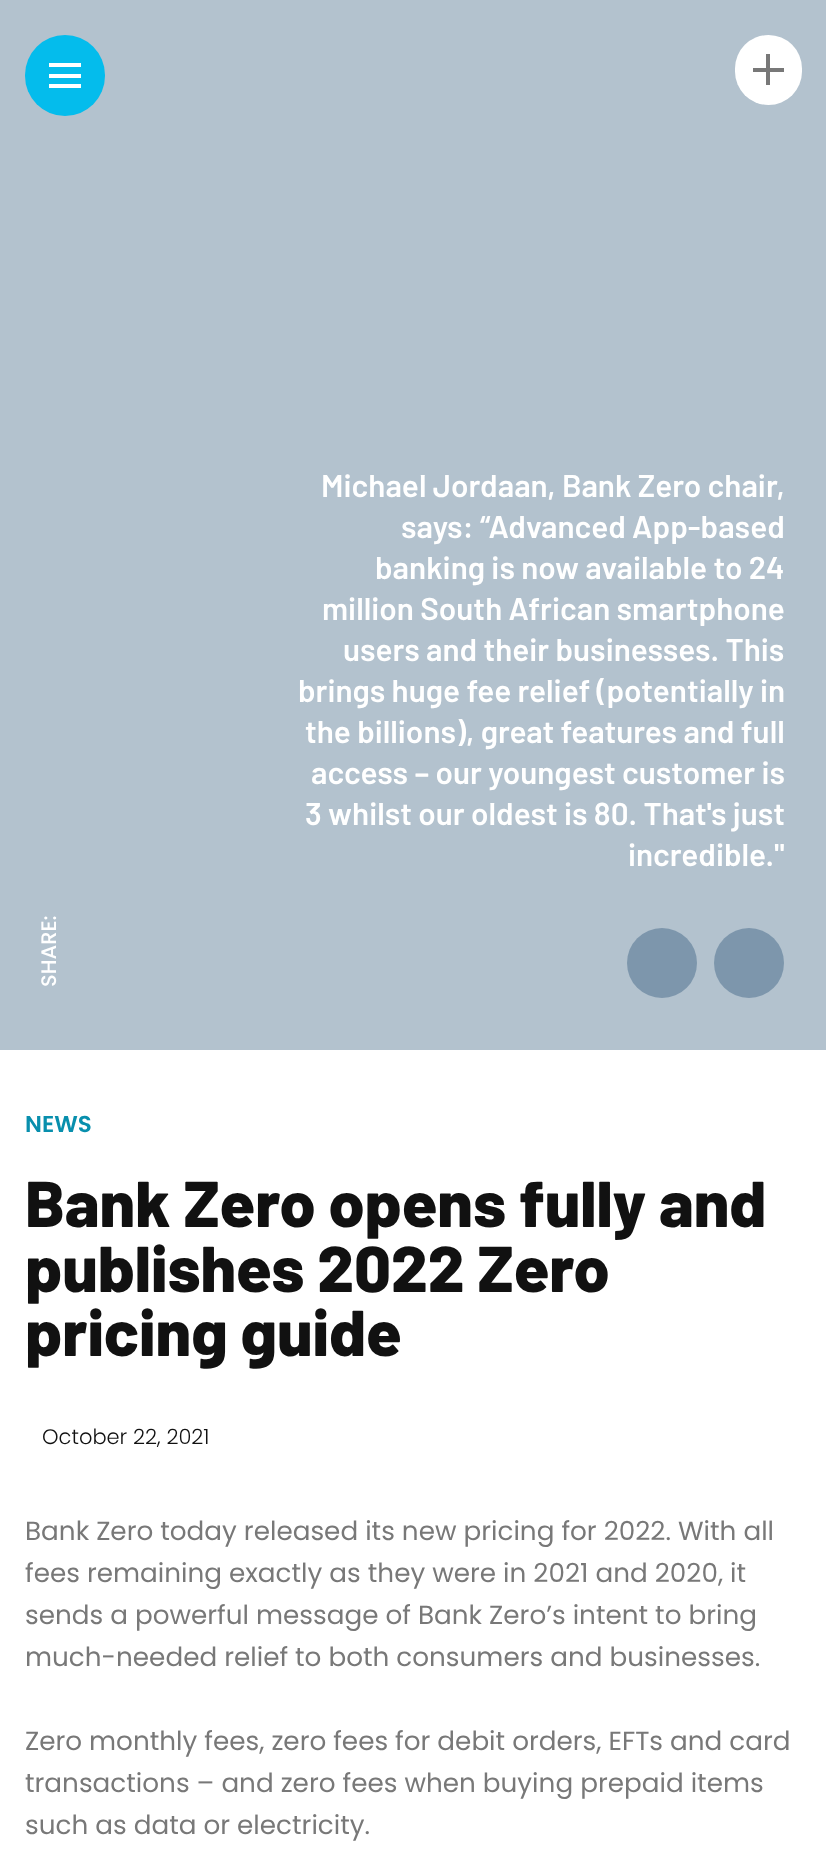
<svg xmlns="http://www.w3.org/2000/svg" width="826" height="1853">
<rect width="100%" height="100%" fill="#fff"/>
<rect width="826" height="1050" fill="#b3c2ce"/>
<rect x="735" y="35" width="67" height="70" rx="33.5" fill="#fff"/>
<rect x="753" y="68" width="31" height="4" fill="#787878"/>
<rect x="766" y="54" width="4" height="31" fill="#787878"/>
<rect x="25" y="35" width="80" height="81" rx="40" fill="#04bcec"/>
<rect x="49" y="63" width="32" height="4" fill="#fff"/>
<rect x="49" y="74" width="32" height="4" fill="#fff"/>
<rect x="49" y="84" width="32" height="4" fill="#fff"/>
<text x="321" y="497" style="font-family:Barlow;font-size:31.5px;font-weight:600;fill:#fff">Michael Jordaan, Bank Zero chair,</text>
<text x="401" y="538" style="font-family:Barlow;font-size:31.5px;font-weight:600;fill:#fff">says: “Advanced App-based</text>
<text x="375" y="579" style="font-family:Barlow;font-size:31.5px;font-weight:600;fill:#fff">banking is now available to 24</text>
<text x="322" y="620" style="font-family:Barlow;font-size:31.5px;font-weight:600;fill:#fff">million South African smartphone</text>
<text x="343" y="661" style="font-family:Barlow;font-size:31.5px;font-weight:600;fill:#fff">users and their businesses. This</text>
<text x="298" y="702" style="font-family:Barlow;font-size:31.5px;font-weight:600;fill:#fff">brings huge fee relief (potentially in</text>
<text x="305" y="743" style="font-family:Barlow;font-size:31.5px;font-weight:600;fill:#fff">the billions), great features and full</text>
<text x="311" y="784" style="font-family:Barlow;font-size:31.5px;font-weight:600;fill:#fff">access – our youngest customer is</text>
<text x="305" y="825" style="font-family:Barlow;font-size:31.5px;font-weight:600;fill:#fff">3 whilst our oldest is 80. That's just</text>
<text x="628" y="866" style="font-family:Barlow;font-size:31.5px;font-weight:600;fill:#fff">incredible."</text>
<text x="56" y="987" transform="rotate(-90 56 987)" style="font-family:Poppins;font-size:21px;font-weight:500;fill:#fff">SHARE:</text>
<circle cx="662" cy="963" r="35" fill="#7d96ac"/>
<circle cx="749" cy="963" r="35" fill="#7d96ac"/>
<text x="25" y="1132" style="font-family:Poppins;font-size:23px;font-weight:600;fill:#088fad">NEWS</text>
<text x="25" y="1227" style="font-family:Barlow;font-size:64.75px;font-weight:800;fill:#111">Bank Zero opens fully and</text>
<text x="25" y="1292" style="font-family:Barlow;font-size:64.75px;font-weight:800;fill:#111">publishes 2022 Zero</text>
<text x="25" y="1356" style="font-family:Barlow;font-size:64.75px;font-weight:800;fill:#111">pricing guide</text>
<text x="42" y="1444" style="font-family:Poppins;font-size:21px;font-weight:300;fill:#111">October 22, 2021</text>
<text x="25" y="1540" style="font-family:Poppins;font-size:26.25px;fill:#787878">Bank Zero today released its new pricing for 2022. With all</text>
<text x="25" y="1582" style="font-family:Poppins;font-size:26.25px;fill:#787878">fees remaining exactly as they were in 2021 and 2020, it</text>
<text x="25" y="1624" style="font-family:Poppins;font-size:26.25px;fill:#787878">sends a powerful message of Bank Zero’s intent to bring</text>
<text x="25" y="1666" style="font-family:Poppins;font-size:26.25px;fill:#787878">much-needed relief to both consumers and businesses.</text>
<text x="25" y="1750" style="font-family:Poppins;font-size:26.25px;fill:#787878">Zero monthly fees, zero fees for debit orders, EFTs and card</text>
<text x="25" y="1792" style="font-family:Poppins;font-size:26.25px;fill:#787878">transactions – and zero fees when buying prepaid items</text>
<text x="25" y="1834" style="font-family:Poppins;font-size:26.25px;fill:#787878">such as data or electricity.</text>
</svg>
